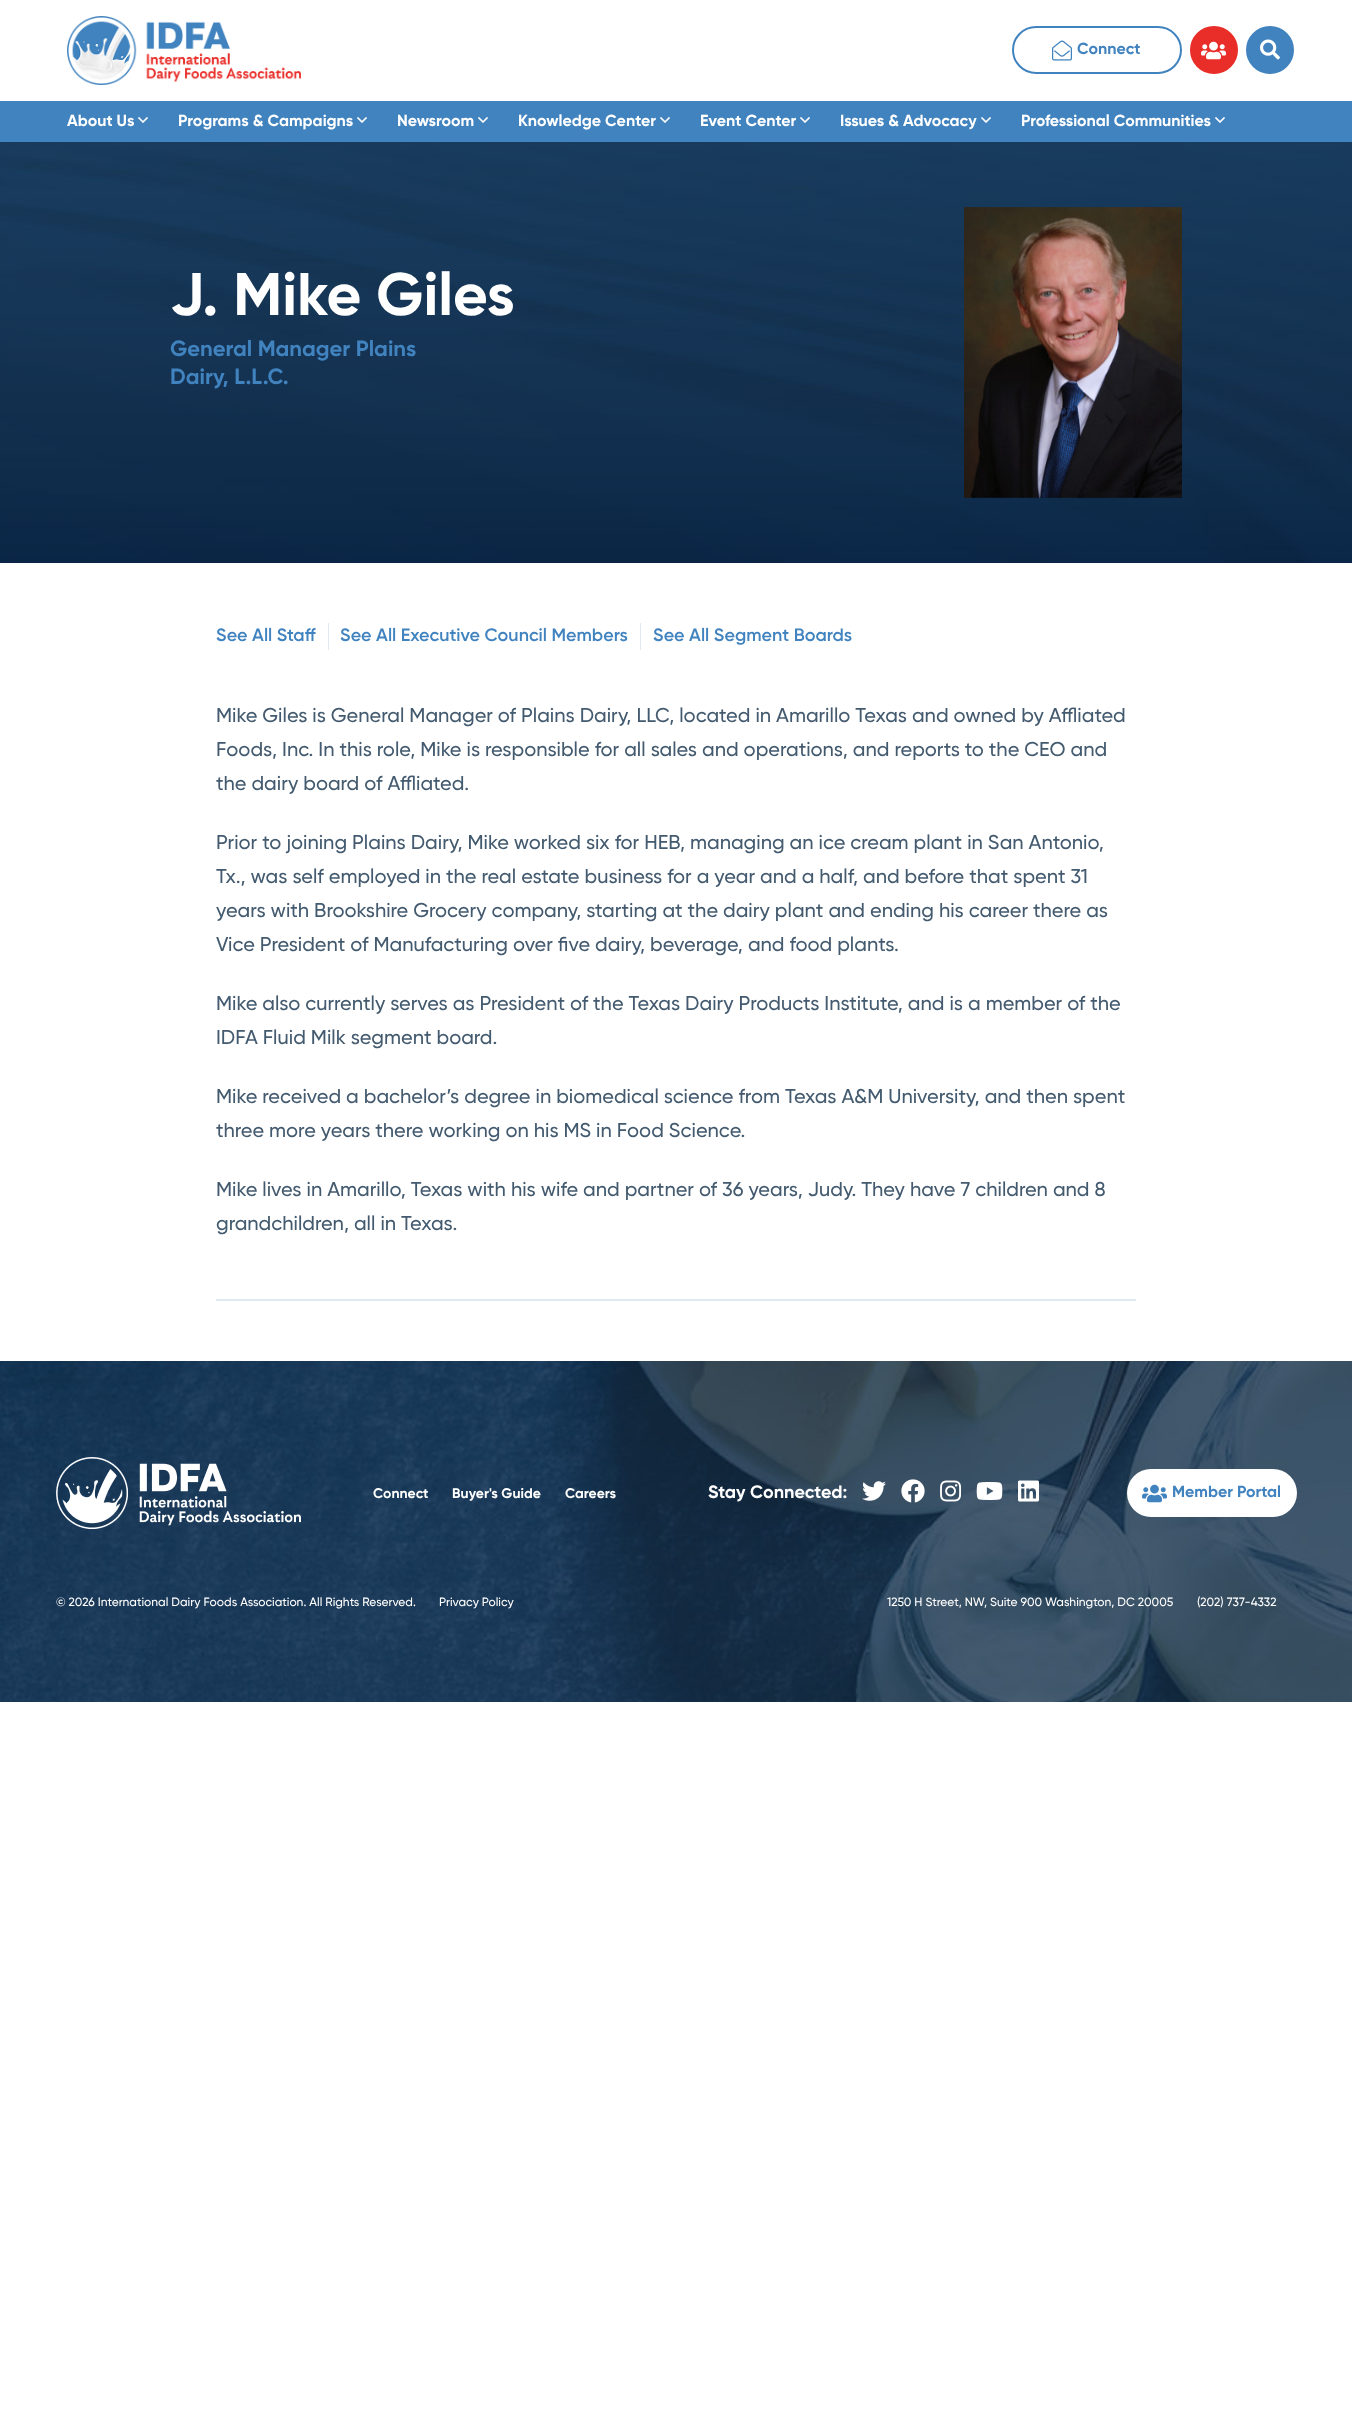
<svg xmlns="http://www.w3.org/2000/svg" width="1352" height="2415">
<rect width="100%" height="100%" fill="#fff"/>
<image x="67" y="16" width="234" height="69" href="media/1.png"/>
<rect x="1013" y="27" width="168" height="46" rx="23" fill="none" stroke="#4183bf" stroke-width="2"/>
<image x="1052" y="40" width="20" height="21" href="media/2.png"/>
<text x="1077" y="54" style="font-family:Gilroy;font-size:16px;fill:#4183bf">Connect</text>
<circle cx="1214" cy="50" r="23" fill="#e92e29" stroke="#e92e29" stroke-width="2"/>
<image x="1201" y="41" width="25" height="19" href="media/3.png"/>
<circle cx="1270" cy="50" r="23" fill="#4183bf" stroke="#4183bf" stroke-width="2"/>
<image x="1260" y="39" width="20" height="21" href="media/4.png"/>
<rect y="101" width="1352" height="41" fill="#4183bf"/>
<text x="67" y="126" style="font-family:Gilroy;font-size:16px;fill:#fff">About Us</text>
<image x="138" y="117" width="10" height="6" href="media/5.png"/>
<text x="178" y="126" style="font-family:Gilroy;font-size:16px;fill:#fff">Programs &amp; Campaigns</text>
<image x="357" y="117" width="10" height="6" href="media/5.png"/>
<text x="397" y="126" style="font-family:Gilroy;font-size:16px;fill:#fff">Newsroom</text>
<image x="478" y="117" width="10" height="6" href="media/5.png"/>
<text x="518" y="126" style="font-family:Gilroy;font-size:16px;fill:#fff">Knowledge Center</text>
<image x="660" y="117" width="10" height="6" href="media/5.png"/>
<text x="700" y="126" style="font-family:Gilroy;font-size:16px;fill:#fff">Event Center</text>
<image x="800" y="117" width="10" height="6" href="media/5.png"/>
<text x="840" y="126" style="font-family:Gilroy;font-size:16px;fill:#fff">Issues &amp; Advocacy</text>
<image x="981" y="117" width="10" height="6" href="media/5.png"/>
<text x="1021" y="126" style="font-family:Gilroy;font-size:16px;fill:#fff">Professional Communities</text>
<image x="1215" y="117" width="10" height="6" href="media/5.png"/>
<image x="0" y="142" width="1352" height="421" href="media/6.png"/>
<text x="170" y="315" style="font-family:Gilroy;font-size:60px;fill:#fff">J. Mike Giles</text>
<text x="170" y="356" style="font-family:Gilroy;font-size:22px;fill:#4183bf">General Manager Plains</text>
<text x="170" y="384" style="font-family:Gilroy;font-size:22px;fill:#4183bf">Dairy, L.L.C.</text>
<image x="964" y="207" width="218" height="291" href="media/7.png"/>
<rect x="328" y="623" width="1" height="27" fill="#dfeaf4"/>
<text x="216" y="641" style="font-family:'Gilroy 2';font-size:18px;fill:#4183bf">See All Staff</text>
<rect x="640" y="623" width="1" height="27" fill="#dfeaf4"/>
<text x="340" y="641" style="font-family:'Gilroy 2';font-size:18px;fill:#4183bf">See All Executive Council Members</text>
<text x="653" y="641" style="font-family:'Gilroy 2';font-size:18px;fill:#4183bf">See All Segment Boards</text>
<rect x="216" y="1299" width="920" height="2" fill="#dfeaf4"/>
<text x="216" y="722" style="font-family:'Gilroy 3';font-size:20px;fill:#435a6f">Mike Giles is General Manager of Plains Dairy, LLC, located in Amarillo Texas and owned by Affliated</text>
<text x="216" y="756" style="font-family:'Gilroy 3';font-size:20px;fill:#435a6f">Foods, Inc. In this role, Mike is responsible for all sales and operations, and reports to the CEO and</text>
<text x="216" y="790" style="font-family:'Gilroy 3';font-size:20px;fill:#435a6f">the dairy board of Affliated.</text>
<text x="216" y="849" style="font-family:'Gilroy 3';font-size:20px;fill:#435a6f">Prior to joining Plains Dairy, Mike worked six for HEB, managing an ice cream plant in San Antonio,</text>
<text x="216" y="883" style="font-family:'Gilroy 3';font-size:20px;fill:#435a6f">Tx., was self employed in the real estate business for a year and a half, and before that spent 31</text>
<text x="216" y="917" style="font-family:'Gilroy 3';font-size:20px;fill:#435a6f">years with Brookshire Grocery company, starting at the dairy plant and ending his career there as</text>
<text x="216" y="951" style="font-family:'Gilroy 3';font-size:20px;fill:#435a6f">Vice President of Manufacturing over five dairy, beverage, and food plants.</text>
<text x="216" y="1010" style="font-family:'Gilroy 3';font-size:20px;fill:#435a6f">Mike also currently serves as President of the Texas Dairy Products Institute, and is a member of the</text>
<text x="216" y="1044" style="font-family:'Gilroy 3';font-size:20px;fill:#435a6f">IDFA Fluid Milk segment board.</text>
<text x="216" y="1103" style="font-family:'Gilroy 3';font-size:20px;fill:#435a6f">Mike received a bachelor’s degree in biomedical science from Texas A&amp;M University, and then spent</text>
<text x="216" y="1137" style="font-family:'Gilroy 3';font-size:20px;fill:#435a6f">three more years there working on his MS in Food Science.</text>
<text x="216" y="1196" style="font-family:'Gilroy 3';font-size:20px;fill:#435a6f">Mike lives in Amarillo, Texas with his wife and partner of 36 years, Judy. They have 7 children and 8</text>
<text x="216" y="1230" style="font-family:'Gilroy 3';font-size:20px;fill:#435a6f">grandchildren, all in Texas.</text>
<image x="0" y="1361" width="1352" height="341" href="media/8.png"/>
<image x="56" y="1457" width="245" height="72" href="media/9.png"/>
<text x="373" y="1498" style="font-family:Gilroy;font-size:14px;fill:#fff">Connect</text>
<text x="452" y="1498" style="font-family:Gilroy;font-size:14px;fill:#fff">Buyer's Guide</text>
<text x="565" y="1498" style="font-family:Gilroy;font-size:14px;fill:#fff">Careers</text>
<text x="708" y="1498" style="font-family:Gilroy;font-size:18px;fill:#fff">Stay Connected:</text>
<image x="862" y="1481" width="24" height="20" href="media/10.png"/>
<image x="901" y="1479" width="24" height="24" href="media/11.png"/>
<image x="940" y="1480" width="22" height="22" href="media/12.png"/>
<image x="976" y="1482" width="27" height="18" href="media/13.png"/>
<image x="1018" y="1480" width="21" height="22" href="media/14.png"/>
<rect x="1127" y="1469" width="170" height="48" rx="24" fill="#fff"/>
<image x="1142" y="1484" width="25" height="19" href="media/15.png"/>
<text x="1172" y="1497" style="font-family:Gilroy;font-size:16px;fill:#4183bf">Member Portal</text>
<text x="56" y="1606" style="font-family:'Gilroy 3';font-size:12px;fill:#fff">© 2026 International Dairy Foods Association. All Rights Reserved.</text>
<text x="439" y="1606" style="font-family:'Gilroy 3';font-size:12px;fill:#fff">Privacy Policy</text>
<text x="887" y="1606" style="font-family:'Gilroy 3';font-size:12px;fill:#fff">1250 H Street, NW, Suite 900 Washington, DC 20005</text>
<text x="1197" y="1606" style="font-family:'Gilroy 3';font-size:12px;fill:#fff">(202) 737-4332</text>
</svg>
